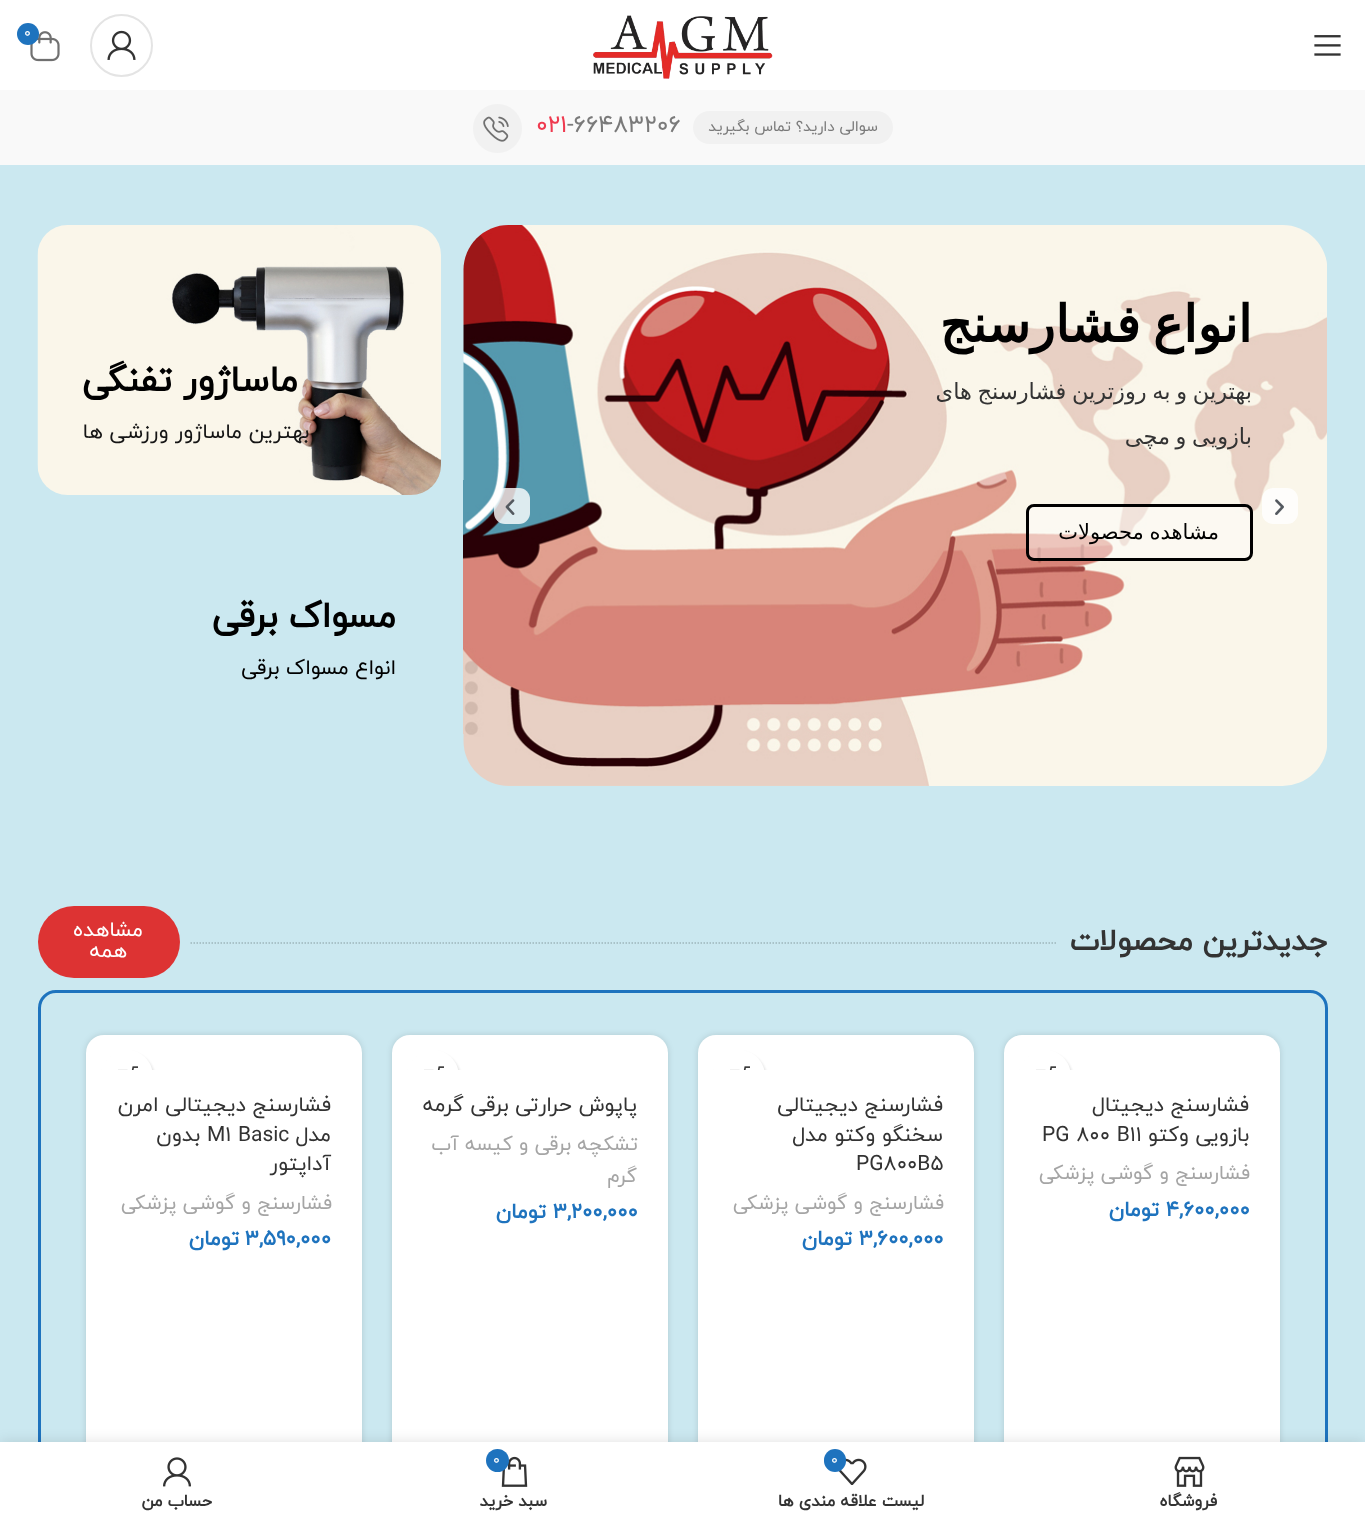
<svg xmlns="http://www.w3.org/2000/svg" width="1365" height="1524">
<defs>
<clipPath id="clip1"><path d="M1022 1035h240c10 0 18 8 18 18v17h-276v-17c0-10 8-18 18-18z"/></clipPath>
<clipPath id="clip2"><path d="M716 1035h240c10 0 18 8 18 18v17h-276v-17c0-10 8-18 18-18z"/></clipPath>
<clipPath id="clip3"><path d="M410 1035h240c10 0 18 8 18 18v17h-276v-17c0-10 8-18 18-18z"/></clipPath>
<clipPath id="clip4"><path d="M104 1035h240c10 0 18 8 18 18v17h-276v-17c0-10 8-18 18-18z"/></clipPath>
</defs>
<rect width="100%" height="100%" fill="#fff"/>
<image x="593" y="15" width="180" height="64" href="media/1.png"/>
<circle cx="121.5" cy="45.5" r="30.5" fill="none" stroke="#e4e4e4" stroke-width="2"/>
<image x="107" y="30" width="29" height="30" href="media/2.png"/>
<image x="30" y="31" width="30" height="31" href="media/3.png"/>
<circle cx="28" cy="34" r="11" fill="#1e73be"/>
<text x="24" y="37" style="font-family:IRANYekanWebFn;font-size:14px;fill:#fff">0</text>
<image x="1314" y="35" width="27" height="21" href="media/4.png"/>
<rect y="90" width="1365" height="75" fill="#f9f9f9"/>
<rect x="693" y="111" width="200" height="33" rx="16.5" fill="#f1f1f1"/>
<text x="878" y="131" style="font-family:IRANYekanWebFn;font-size:15px;direction:rtl;fill:#7a7a7a">سوالی دارید؟ تماس بگیرید</text>
<text x="567" y="132" style="font-family:IRANYekanWebFn;font-size:24px;fill:#7a7a7a">-66483206</text>
<text x="536" y="132" style="font-family:IRANYekanWebFn;font-size:24px;fill:#ef3a4f">021</text>
<image x="473" y="104" width="49" height="49" href="media/5.png"/>
<rect y="165" width="1365" height="1277" fill="#cbe8f0"/>
<image x="463" y="225" width="864" height="561" href="media/7.png"/>
<rect x="1262" y="488" width="36" height="36" rx="11" fill="#ffffffcc"/>
<image x="1275" y="499" width="9" height="16" href="media/6.png"/>
<text x="1252" y="342" word-spacing="-4" style="font-family:DejaVu Sans;font-size:51px;font-weight:bold;direction:rtl;fill:#000">انواع فشارسنج</text>
<text x="1252" y="399" word-spacing="-1.5" style="font-family:DejaVu Sans;font-size:22.5px;direction:rtl;fill:#333">بهترین و به روزترین فشارسنج های</text>
<text x="1252" y="444" word-spacing="-1.5" style="font-family:DejaVu Sans;font-size:22.5px;direction:rtl;fill:#333">بازویی و مچی</text>
<rect x="1027.5" y="505.5" width="224" height="54" rx="6.5" fill="#ffffff66" stroke="#000" stroke-width="3"/>
<text x="1219" y="539" word-spacing="-1" style="font-family:DejaVu Sans;font-size:21px;direction:rtl;fill:#000">مشاهده محصولات</text>
<rect x="494" y="488" width="36" height="36" rx="11" fill="#ffffffcc"/>
<image x="505" y="499" width="10" height="16" href="media/8.png"/>
<image x="37" y="225" width="404" height="270" href="media/9.png"/>
<text x="298" y="391" style="font-family:IRANYekanWebFn;font-size:36px;font-weight:bold;direction:rtl;fill:#000">ماساژور تفنگی</text>
<text x="309" y="438" style="font-family:IRANYekanWebFn;font-size:21px;direction:rtl;fill:#151515">بهترین ماساژور ورزشی ها</text>
<text x="396" y="627" style="font-family:IRANYekanWebFn;font-size:36px;font-weight:bold;direction:rtl;fill:#000">مسواک برقی</text>
<text x="396" y="674" style="font-family:IRANYekanWebFn;font-size:21px;direction:rtl;fill:#000">انواع مسواک برقی</text>
<text x="1327" y="950" style="font-family:IRANYekanWebFn;font-size:30px;font-weight:bold;direction:rtl;fill:#333">جدیدترین محصولات</text>
<path d="M190.5 943h865.5" fill="none" stroke="#9eb5bb" stroke-width="1.5" stroke-dasharray="1.5 1.5"/>
<rect x="38" y="906" width="142" height="72" rx="36" fill="#d33"/>
<text x="143" y="936" style="font-family:IRANYekanWebFn;font-size:21px;direction:rtl;fill:#fff">مشاهده</text>
<text x="127" y="957" style="font-family:IRANYekanWebFn;font-size:21px;direction:rtl;fill:#fff">همه</text>
<rect x="39.5" y="991.5" width="1287" height="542" rx="16.5" fill="none" stroke="#1e73be" stroke-width="3"/>
<rect x="1004" y="1035" width="276" height="455" rx="18" fill="#0000001f" filter="blur(3px)"/>
<rect x="1004" y="1035" width="276" height="455" rx="18" fill="#fff"/>
<g clip-path="url(#clip1)">
<rect x="1020" y="1052" width="53" height="105" rx="26.5" fill="#0000001a" filter="blur(1px)"/>
</g>
<path d="M1045 1050c14.5 0 26 11.5 26 26v-6h-52v6c0-14.5 11.5-26 26-26z" fill="#fff"/>
<image x="1036" y="1066" width="20" height="4" href="media/10.png"/>
<text x="1249" y="1111" style="font-family:IRANYekanWebFn;font-size:21px;direction:rtl;fill:#333">فشارسنج دیجیتال</text>
<text x="1249" y="1141" style="font-family:IRANYekanWebFn;font-size:21px;direction:rtl;fill:#333">بازویی وکتو</text>
<text x="1042" y="1141" style="font-family:IRANYekanWebFn;font-size:21px;fill:#333">PG 800 B11</text>
<text x="1250" y="1179" style="font-family:IRANYekanWebFn;font-size:20px;direction:rtl;fill:#a5a5a5">فشارسنج و گوشی پزشکی</text>
<text x="1166" y="1216" style="font-family:IRANYekanWebFn;font-size:21px;font-weight:bold;fill:#1e73be">4,600,000</text>
<text x="1159" y="1216" style="font-family:IRANYekanWebFn;font-size:21px;font-weight:bold;direction:rtl;fill:#1e73be">تومان</text>
<rect x="698" y="1035" width="276" height="455" rx="18" fill="#0000001f" filter="blur(3px)"/>
<rect x="698" y="1035" width="276" height="455" rx="18" fill="#fff"/>
<g clip-path="url(#clip2)">
<rect x="714" y="1052" width="53" height="105" rx="26.5" fill="#0000001a" filter="blur(1px)"/>
</g>
<path d="M739 1050c14.5 0 26 11.5 26 26v-6h-52v6c0-14.5 11.5-26 26-26z" fill="#fff"/>
<image x="730" y="1066" width="20" height="4" href="media/10.png"/>
<text x="943" y="1111" style="font-family:IRANYekanWebFn;font-size:21px;direction:rtl;fill:#333">فشارسنج دیجیتالی</text>
<text x="943" y="1141" style="font-family:IRANYekanWebFn;font-size:21px;direction:rtl;fill:#333">سخنگو وکتو مدل</text>
<text x="856" y="1170" style="font-family:IRANYekanWebFn;font-size:21px;fill:#333">PG800B5</text>
<text x="944" y="1209" style="font-family:IRANYekanWebFn;font-size:20px;direction:rtl;fill:#a5a5a5">فشارسنج و گوشی پزشکی</text>
<text x="859" y="1245" style="font-family:IRANYekanWebFn;font-size:21px;font-weight:bold;fill:#1e73be">3,600,000</text>
<text x="852" y="1245" style="font-family:IRANYekanWebFn;font-size:21px;font-weight:bold;direction:rtl;fill:#1e73be">تومان</text>
<rect x="392" y="1035" width="276" height="455" rx="18" fill="#0000001f" filter="blur(3px)"/>
<rect x="392" y="1035" width="276" height="455" rx="18" fill="#fff"/>
<g clip-path="url(#clip3)">
<rect x="408" y="1052" width="53" height="105" rx="26.5" fill="#0000001a" filter="blur(1px)"/>
</g>
<path d="M433 1050c14.5 0 26 11.5 26 26v-6h-52v6c0-14.5 11.5-26 26-26z" fill="#fff"/>
<image x="424" y="1066" width="20" height="4" href="media/10.png"/>
<text x="637" y="1111" style="font-family:IRANYekanWebFn;font-size:21px;direction:rtl;fill:#333">پاپوش حرارتی برقی گرمه</text>
<text x="638" y="1150" style="font-family:IRANYekanWebFn;font-size:20px;direction:rtl;fill:#a5a5a5">تشکچه برقی و کیسه آب</text>
<text x="637" y="1182" style="font-family:IRANYekanWebFn;font-size:20px;direction:rtl;fill:#a5a5a5">گرم</text>
<text x="553" y="1218" style="font-family:IRANYekanWebFn;font-size:21px;font-weight:bold;fill:#1e73be">3,200,000</text>
<text x="546" y="1218" style="font-family:IRANYekanWebFn;font-size:21px;font-weight:bold;direction:rtl;fill:#1e73be">تومان</text>
<rect x="86" y="1035" width="276" height="455" rx="18" fill="#0000001f" filter="blur(3px)"/>
<rect x="86" y="1035" width="276" height="455" rx="18" fill="#fff"/>
<g clip-path="url(#clip4)">
<rect x="102" y="1052" width="53" height="105" rx="26.5" fill="#0000001a" filter="blur(1px)"/>
</g>
<path d="M127 1050c14.5 0 26 11.5 26 26v-6h-52v6c0-14.5 11.5-26 26-26z" fill="#fff"/>
<image x="118" y="1066" width="20" height="4" href="media/10.png"/>
<text x="331" y="1111" style="font-family:IRANYekanWebFn;font-size:21px;direction:rtl;fill:#333">فشارسنج دیجیتالی امرن</text>
<text x="331" y="1141" style="font-family:IRANYekanWebFn;font-size:21px;direction:rtl;fill:#333">مدل</text>
<text x="207" y="1141" style="font-family:IRANYekanWebFn;font-size:21px;fill:#333">M1 Basic</text>
<text x="200" y="1141" style="font-family:IRANYekanWebFn;font-size:21px;direction:rtl;fill:#333">بدون</text>
<text x="331" y="1170" style="font-family:IRANYekanWebFn;font-size:21px;direction:rtl;fill:#333">آداپتور</text>
<text x="332" y="1209" style="font-family:IRANYekanWebFn;font-size:20px;direction:rtl;fill:#a5a5a5">فشارسنج و گوشی پزشکی</text>
<text x="245" y="1245" style="font-family:IRANYekanWebFn;font-size:21px;font-weight:bold;fill:#1e73be">3,590,000</text>
<text x="239" y="1245" style="font-family:IRANYekanWebFn;font-size:21px;font-weight:bold;direction:rtl;fill:#1e73be">تومان</text>
<rect y="1442" width="1365" height="82" fill="#0000001f" filter="blur(7px)"/>
<rect y="1442" width="1365" height="82" fill="#fff"/>
<image x="1174" y="1456" width="31" height="31" href="media/11.png"/>
<text x="1217" y="1506" style="font-family:IRANYekanWebFn;font-size:16.5px;font-weight:bold;direction:rtl;fill:#333">فروشگاه</text>
<image x="838" y="1458" width="29" height="27" href="media/12.png"/>
<rect x="824" y="1449" width="22" height="23" rx="11" fill="#1e73be"/>
<text x="831" y="1464" style="font-family:IRANYekanWebFn;font-size:14px;fill:#fff">0</text>
<text x="924" y="1506" style="font-family:IRANYekanWebFn;font-size:16.5px;font-weight:bold;direction:rtl;fill:#333">لیست علاقه مندی ها</text>
<image x="501" y="1456" width="27" height="31" href="media/13.png"/>
<circle cx="497.5" cy="1460.5" r="11.5" fill="#1e73be"/>
<text x="493" y="1464" style="font-family:IRANYekanWebFn;font-size:14px;fill:#fff">0</text>
<text x="547" y="1506" style="font-family:IRANYekanWebFn;font-size:16.5px;font-weight:bold;direction:rtl;fill:#333">سبد خرید</text>
<image x="163" y="1457" width="28" height="30" href="media/14.png"/>
<text x="212" y="1506" style="font-family:IRANYekanWebFn;font-size:16.5px;font-weight:bold;direction:rtl;fill:#333">حساب من</text>
</svg>
